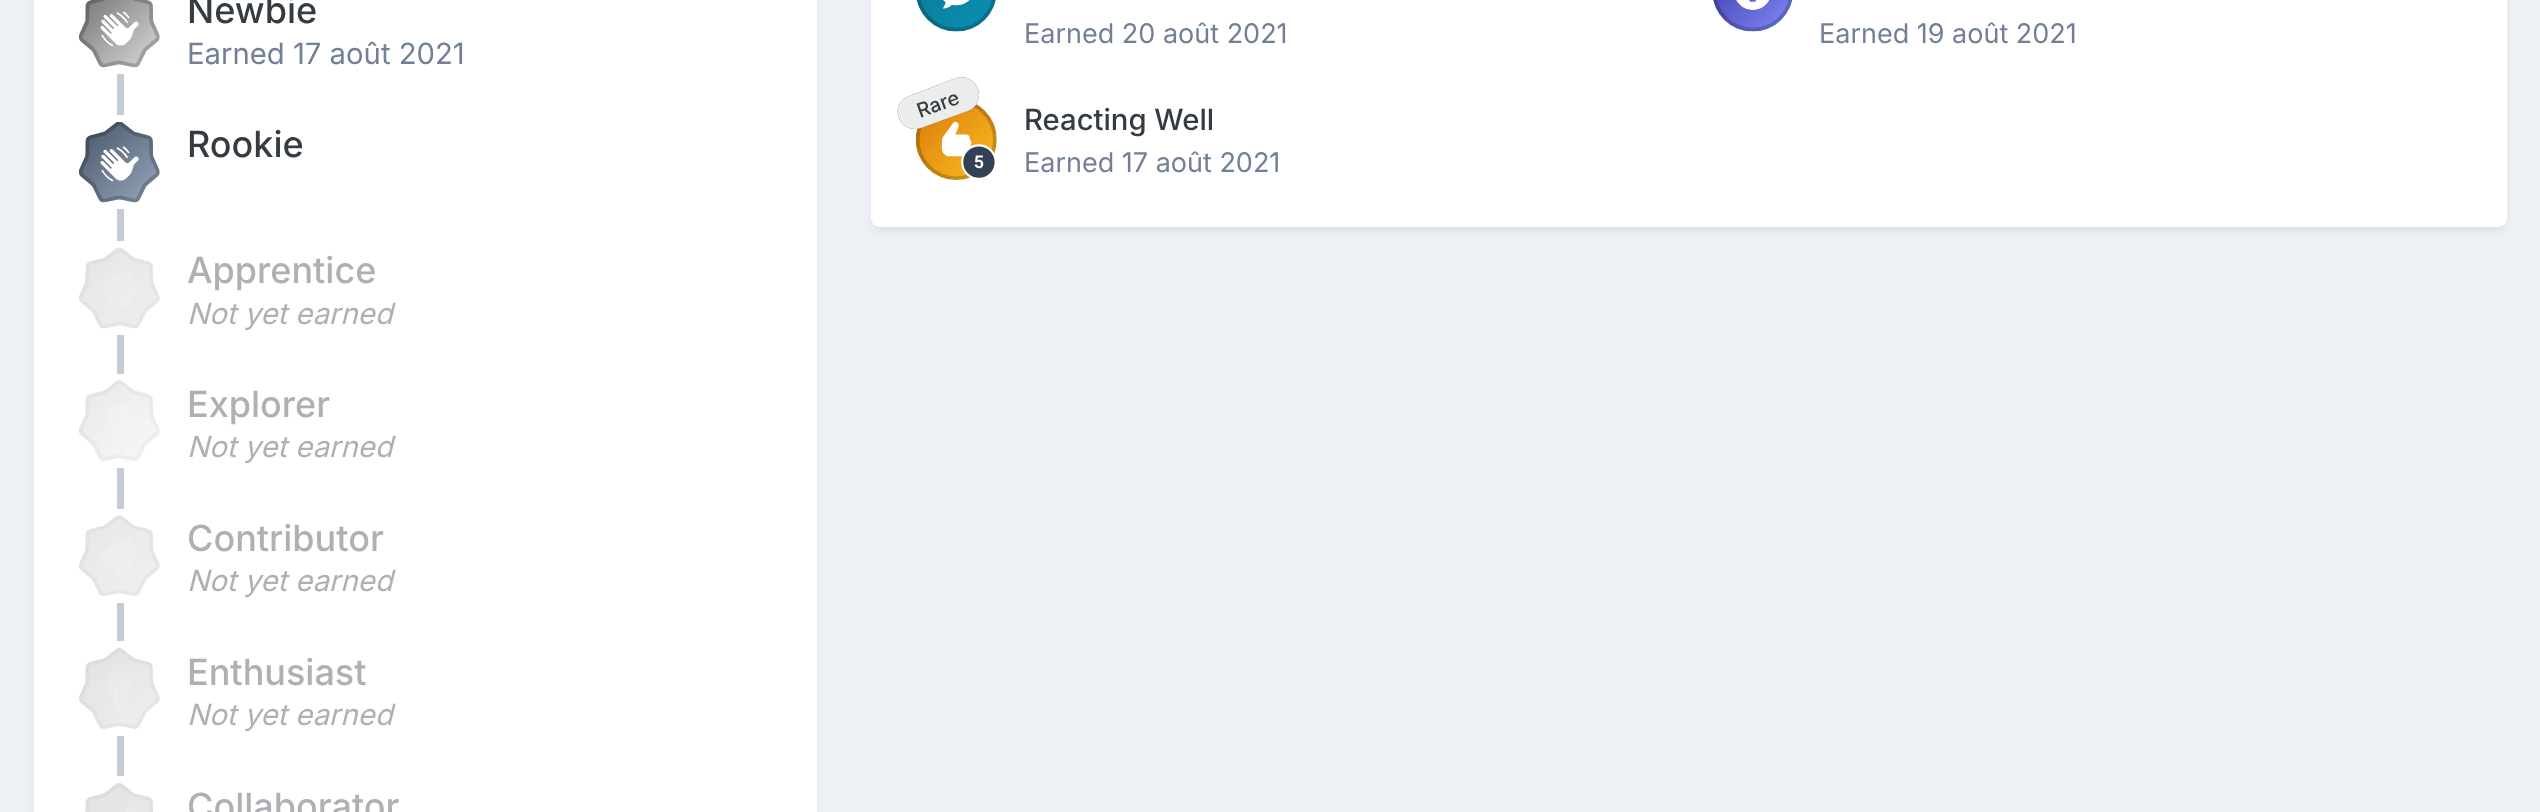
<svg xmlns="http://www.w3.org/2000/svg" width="2540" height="812">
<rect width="100%" height="100%" fill="#edf0f4"/>
<rect x="36" y="-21" width="779" height="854" rx="7" fill="#2d37481a" filter="blur(4.5px)"/>
<rect x="34" width="783" height="812" fill="#fff"/>
<image x="79" y="0" width="81" height="68" href="media/1.png"/>
<text x="187" y="23" style="font-family:Inter;font-size:36px;font-weight:500;fill:#353c41">Newbie</text>
<text x="187" y="64" style="font-family:Inter;font-size:29.25px;fill:#718096">Earned 17 août 2021</text>
<rect x="117" y="74" width="7" height="702" fill="#c6ccd5"/>
<rect x="117" y="115" width="7" height="94" fill="#fff"/>
<image x="79" y="122" width="81" height="81" href="media/2.png"/>
<text x="187" y="157" style="font-family:Inter;font-size:36px;font-weight:500;fill:#353c41">Rookie</text>
<rect x="117" y="241" width="7" height="94" fill="#fff"/>
<image x="79" y="248" width="81" height="81" href="media/3.png"/>
<text x="187" y="283" style="font-family:Inter;font-size:36px;font-weight:500;fill:#aeb1b3">Apprentice</text>
<text x="187" y="324" style="font-family:Inter;font-size:29.25px;font-style:italic;fill:#aeb1b3">Not yet earned</text>
<rect x="117" y="374" width="7" height="94" fill="#fff"/>
<image x="79" y="380" width="81" height="81" href="media/4.png"/>
<text x="187" y="417" style="font-family:Inter;font-size:36px;font-weight:500;fill:#aeb1b3">Explorer</text>
<text x="187" y="457" style="font-family:Inter;font-size:29.25px;font-style:italic;fill:#aeb1b3">Not yet earned</text>
<rect x="117" y="509" width="7" height="94" fill="#fff"/>
<image x="79" y="515" width="81" height="81" href="media/5.png"/>
<text x="187" y="551" style="font-family:Inter;font-size:36px;font-weight:500;fill:#aeb1b3">Contributor</text>
<text x="187" y="591" style="font-family:Inter;font-size:29.25px;font-style:italic;fill:#aeb1b3">Not yet earned</text>
<rect x="117" y="641" width="7" height="95" fill="#fff"/>
<image x="79" y="648" width="81" height="81" href="media/6.png"/>
<text x="187" y="685" style="font-family:Inter;font-size:36px;font-weight:500;fill:#aeb1b3">Enthusiast</text>
<text x="187" y="725" style="font-family:Inter;font-size:29.25px;font-style:italic;fill:#aeb1b3">Not yet earned</text>
<image x="85" y="783" width="68" height="29" href="media/7.png"/>
<text x="187" y="819" style="font-family:Inter;font-size:36px;font-weight:500;fill:#aeb1b3">Collaborator</text>
<rect x="873" y="-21" width="1631" height="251" rx="7" fill="#2d37481a" filter="blur(4.5px)"/>
<rect x="871" y="-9" width="1636" height="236" rx="9" fill="#fff"/>
<image x="916" y="0" width="80" height="32" href="media/8.png"/>
<text x="1024" y="43" style="font-family:Inter;font-size:27px;fill:#718096">Earned 20 août 2021</text>
<image x="1713" y="0" width="80" height="32" href="media/9.png"/>
<text x="1819" y="43" style="font-family:Inter;font-size:27px;fill:#718096">Earned 19 août 2021</text>
<image x="916" y="101" width="81" height="79" href="media/10.png"/>
<path d="M909 96l47-18c9-3 19 2 22 11c3 9-1 19-10 22l-47 17c-9 3-19-1-22-10c-4-9 1-19 10-22z" fill="#353c41"/>
<path d="M909 96l47-18c9-3 19 2 22 11c3 9-1 19-10 22l-47 17c-9 3-19-1-22-10c-4-9 1-19 10-22z" fill="#ffffffe6"/>
<text x="920" y="118" transform="rotate(-20 920 118)" style="font-family:Inter;font-size:20px;font-weight:500;fill:#353c41">Rare</text>
<text x="1024" y="130" style="font-family:Inter;font-size:29.25px;font-weight:500;fill:#353c41">Reacting Well</text>
<text x="1024" y="172" style="font-family:Inter;font-size:27px;fill:#718096">Earned 17 août 2021</text>
</svg>
